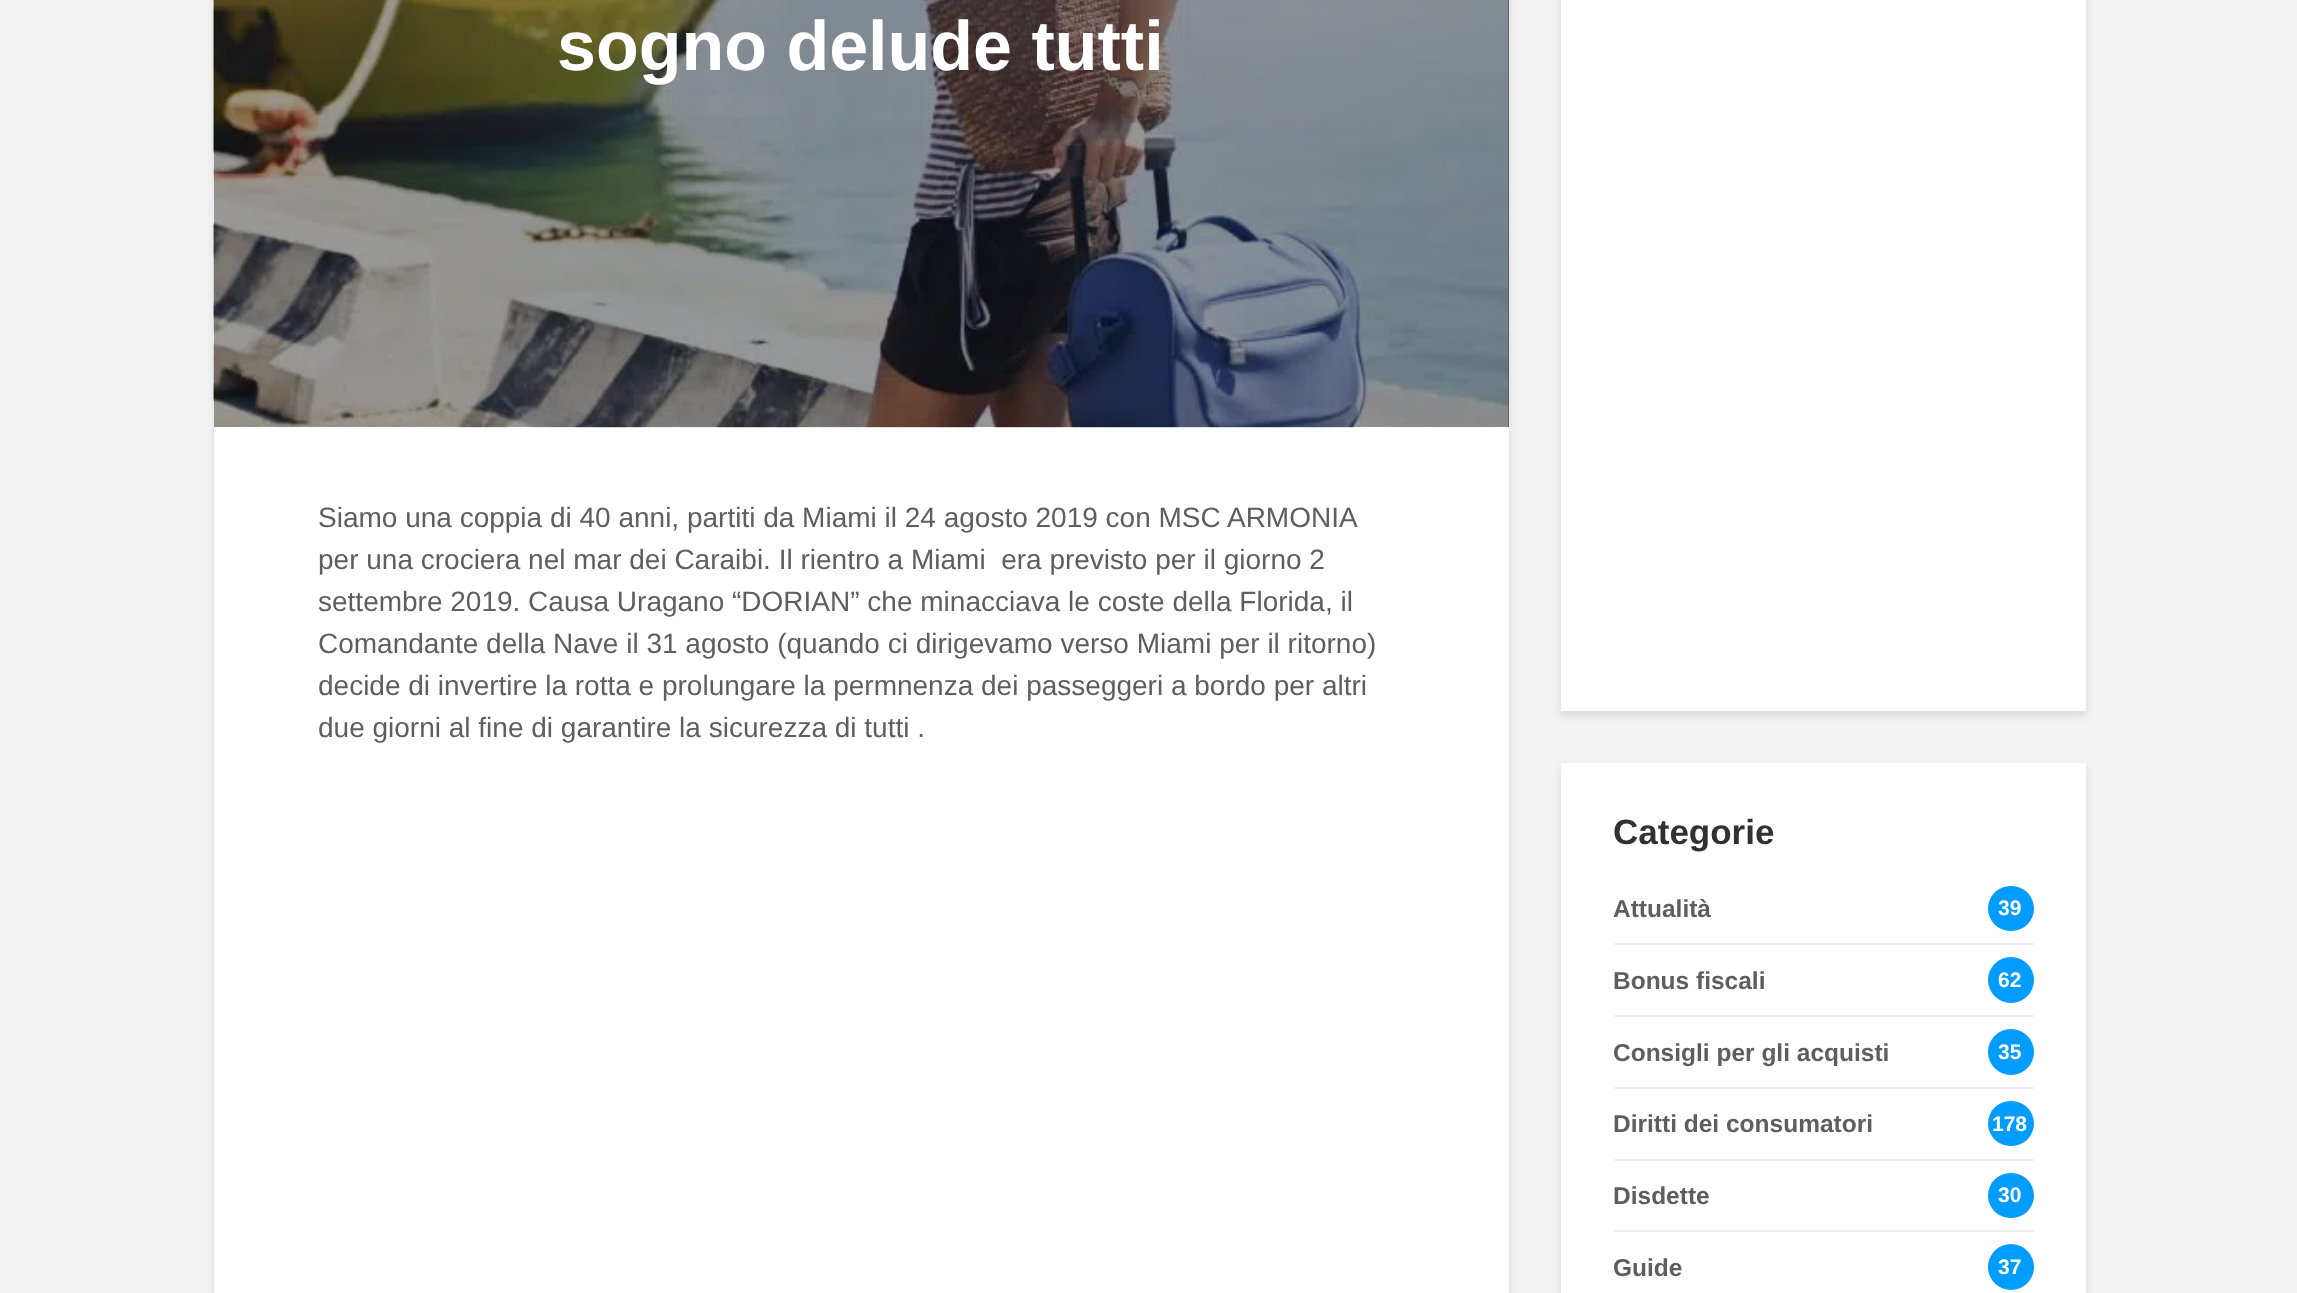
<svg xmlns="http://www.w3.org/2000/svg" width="2297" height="1293">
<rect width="100%" height="100%" fill="#f3f3f3"/>
<rect x="214" y="-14" width="1295" height="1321" fill="#0001011a" filter="blur(4.5px)"/>
<rect x="214" y="427" width="1295" height="866" fill="#fff"/>
<rect x="1508" width="1" height="427" fill="#666"/>
<image x="213" y="0" width="1296" height="428" href="media/1.png"/>
<rect x="214" width="1295" height="427" fill="#00000066"/>
<text x="557" y="70" style="font-family:Liberation Sans;font-size:70px;font-weight:bold;fill:#fff">sogno delude tutti</text>
<text x="318" y="527" style="font-family:Liberation Sans;font-size:28px;fill:#5e5e5e">Siamo una coppia di 40 anni, partiti da Miami il 24 agosto 2019 con MSC ARMONIA</text>
<text x="318" y="569" style="font-family:Liberation Sans;font-size:28px;fill:#5e5e5e" xml:space="preserve">per una crociera nel mar dei Caraibi. Il rientro a Miami  era previsto per il giorno 2</text>
<text x="318" y="611" style="font-family:Liberation Sans;font-size:28px;fill:#5e5e5e">settembre 2019. Causa Uragano “DORIAN” che minacciava le coste della Florida, il</text>
<text x="318" y="653" style="font-family:Liberation Sans;font-size:28px;fill:#5e5e5e">Comandante della Nave il 31 agosto (quando ci dirigevamo verso Miami per il ritorno)</text>
<text x="318" y="695" style="font-family:Liberation Sans;font-size:28px;fill:#5e5e5e">decide di invertire la rotta e prolungare la permnenza dei passeggeri a bordo per altri</text>
<text x="318" y="737" style="font-family:Liberation Sans;font-size:28px;fill:#5e5e5e">due giorni al fine di garantire la sicurezza di tutti .</text>
<rect x="1561" y="-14" width="525" height="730" fill="#0001011a" filter="blur(4.5px)"/>
<rect x="1561" width="525" height="711" fill="#fff"/>
<rect x="1561" y="768" width="525" height="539" fill="#0001011a" filter="blur(4.5px)"/>
<rect x="1561" y="763" width="525" height="530" fill="#fff"/>
<text x="1613" y="844" style="font-family:Liberation Sans;font-size:35px;font-weight:bold;fill:#313131">Categorie</text>
<rect x="1614" y="943" width="420" height="2" fill="#efefef"/>
<text x="1613" y="917" style="font-family:Liberation Sans;font-size:24.5px;font-weight:bold;fill:#5e5e5e">Attualità</text>
<rect x="1988" y="886" width="46" height="45" rx="22.5" fill="#009cff"/>
<text x="1998" y="915" style="font-family:Liberation Sans;font-size:21px;font-weight:bold;fill:#fff">39</text>
<rect x="1614" y="1015" width="420" height="2" fill="#efefef"/>
<text x="1613" y="989" style="font-family:Liberation Sans;font-size:24.5px;font-weight:bold;fill:#5e5e5e">Bonus fiscali</text>
<circle cx="2011" cy="980" r="23" fill="#009cff"/>
<text x="1998" y="987" style="font-family:Liberation Sans;font-size:21px;font-weight:bold;fill:#fff">62</text>
<rect x="1614" y="1087" width="420" height="2" fill="#efefef"/>
<text x="1613" y="1061" style="font-family:Liberation Sans;font-size:24.5px;font-weight:bold;fill:#5e5e5e">Consigli per gli acquisti</text>
<circle cx="2011" cy="1052" r="23" fill="#009cff"/>
<text x="1998" y="1059" style="font-family:Liberation Sans;font-size:21px;font-weight:bold;fill:#fff">35</text>
<rect x="1614" y="1159" width="420" height="2" fill="#efefef"/>
<text x="1613" y="1132" style="font-family:Liberation Sans;font-size:24.5px;font-weight:bold;fill:#5e5e5e">Diritti dei consumatori</text>
<rect x="1988" y="1101" width="46" height="45" rx="22.5" fill="#009cff"/>
<text x="1992" y="1131" style="font-family:Liberation Sans;font-size:21px;font-weight:bold;fill:#fff">178</text>
<rect x="1614" y="1230" width="420" height="2" fill="#efefef"/>
<text x="1613" y="1204" style="font-family:Liberation Sans;font-size:24.5px;font-weight:bold;fill:#5e5e5e">Disdette</text>
<rect x="1988" y="1173" width="46" height="45" rx="22.5" fill="#009cff"/>
<text x="1998" y="1202" style="font-family:Liberation Sans;font-size:21px;font-weight:bold;fill:#fff">30</text>
<text x="1613" y="1276" style="font-family:Liberation Sans;font-size:24.5px;font-weight:bold;fill:#5e5e5e">Guide</text>
<circle cx="2011" cy="1267" r="23" fill="#009cff"/>
<text x="1998" y="1274" style="font-family:Liberation Sans;font-size:21px;font-weight:bold;fill:#fff">37</text>
</svg>
